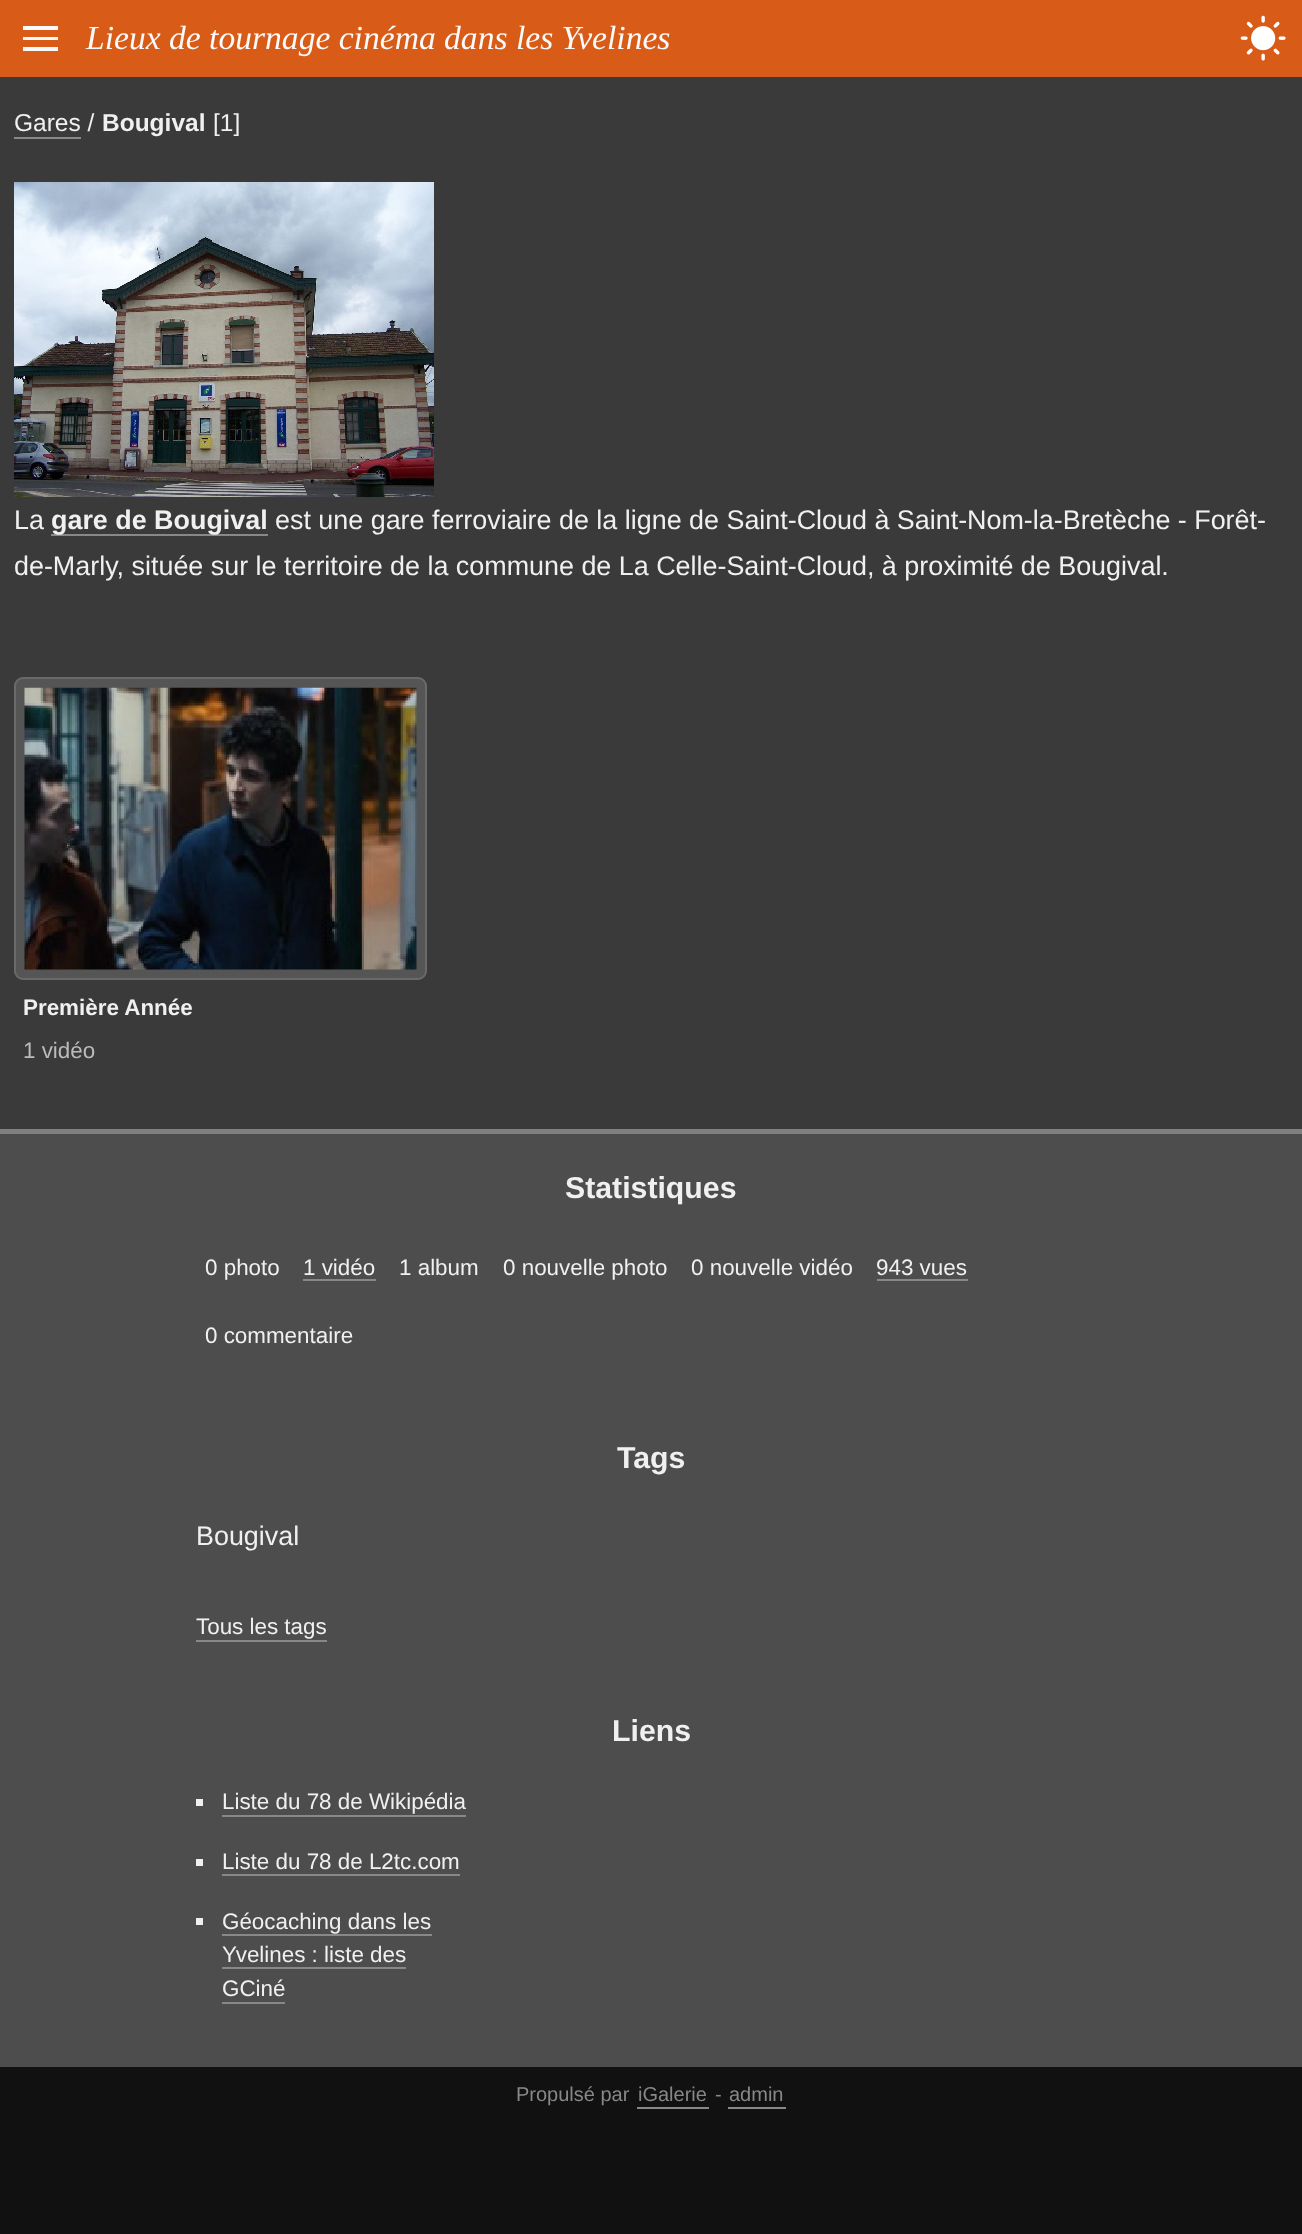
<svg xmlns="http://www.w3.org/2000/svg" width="1302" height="2234">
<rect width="100%" height="100%" fill="#111"/>
<rect y="77" width="1302" height="1052" fill="#3a3a3a"/>
<rect width="1302" height="77" fill="#d85c18"/>
<path d="M23 26h35v4h-35zm0 11h35v3h-35zm0 10h35v4h-35z" fill="#fafafa"/>
<text x="86" y="49" style="font-family:Liberation Serif;font-size:33.6px;font-style:italic;fill:#fafafa">Lieux de tournage cinéma dans les Yvelines</text>
<image x="1240" y="15" width="46" height="46" href="media/1.png"/>
<text x="14" y="131" style="font-family:Liberation Sans;font-size:24.5px;fill:#f0f0f0">Gares /</text>
<rect x="14" y="137" width="67" height="2" fill="#888"/>
<text x="102" y="131" style="font-family:Liberation Sans;font-size:24.5px;font-weight:bold;fill:#f0f0f0">Bougival</text>
<text x="213" y="131" style="font-family:Liberation Sans;font-size:24.5px;fill:#f0f0f0">[1]</text>
<image x="14" y="182" width="420" height="315" href="media/2.png"/>
<text x="14" y="529" style="font-family:Liberation Sans;font-size:26.9px;fill:#f0f0f0">La</text>
<rect x="51" y="534" width="217" height="2" fill="#888"/>
<text x="51" y="529" style="font-family:Liberation Sans;font-size:26.9px;font-weight:bold;fill:#f0f0f0">gare de Bougival</text>
<text x="275" y="529" style="font-family:Liberation Sans;font-size:26.9px;fill:#f0f0f0">est une gare ferroviaire de la ligne de Saint-Cloud à Saint-Nom-la-Bretèche - Forêt-</text>
<text x="14" y="575" style="font-family:Liberation Sans;font-size:26.9px;fill:#f0f0f0">de-Marly, située sur le territoire de la commune de La Celle-Saint-Cloud, à proximité de Bougival.</text>
<rect x="15" y="678" width="411" height="301" rx="8" fill="#555" stroke="#6a6a6a" stroke-width="2"/>
<image x="24" y="687" width="393" height="283" href="media/3.png"/>
<text x="23" y="1015" style="font-family:Liberation Sans;font-size:22.4px;font-weight:bold;fill:#f0f0f0">Première Année</text>
<text x="23" y="1058" style="font-family:Liberation Sans;font-size:22.4px;fill:#bbb">1 vidéo</text>
<rect y="1134" width="1302" height="933" fill="#4d4d4d"/>
<rect y="1129" width="1302" height="5" fill="#808080"/>
<text x="565" y="1198" style="font-family:Liberation Sans;font-size:30.25px;font-weight:bold;fill:#f0f0f0">Statistiques</text>
<text x="205" y="1275" style="font-family:Liberation Sans;font-size:22.4px;fill:#f0f0f0">0 photo</text>
<text x="303" y="1275" style="font-family:Liberation Sans;font-size:22.4px;fill:#f0f0f0">1 vidéo</text>
<rect x="303" y="1279" width="73" height="2" fill="#888"/>
<text x="399" y="1275" style="font-family:Liberation Sans;font-size:22.4px;fill:#f0f0f0">1 album</text>
<text x="503" y="1275" style="font-family:Liberation Sans;font-size:22.4px;fill:#f0f0f0">0 nouvelle photo</text>
<text x="691" y="1275" style="font-family:Liberation Sans;font-size:22.4px;fill:#f0f0f0">0 nouvelle vidéo</text>
<text x="876" y="1275" style="font-family:Liberation Sans;font-size:22.4px;fill:#f0f0f0">943 vues</text>
<rect x="877" y="1279" width="91" height="2" fill="#888"/>
<text x="205" y="1343" style="font-family:Liberation Sans;font-size:22.4px;fill:#f0f0f0">0 commentaire</text>
<text x="617" y="1468" style="font-family:Liberation Sans;font-size:30.25px;font-weight:bold;fill:#f0f0f0">Tags</text>
<text x="196" y="1545" style="font-family:Liberation Sans;font-size:26.9px;fill:#f0f0f0">Bougival</text>
<rect x="196" y="1640" width="131" height="2" fill="#888"/>
<text x="196" y="1634" style="font-family:Liberation Sans;font-size:22.4px;fill:#f0f0f0">Tous les tags</text>
<text x="612" y="1741" style="font-family:Liberation Sans;font-size:30.25px;font-weight:bold;fill:#f0f0f0">Liens</text>
<rect x="196" y="1799" width="7" height="7" fill="#f0f0f0"/>
<text x="222" y="1809" style="font-family:Liberation Sans;font-size:22.4px;fill:#f0f0f0">Liste du 78 de Wikipédia</text>
<rect x="222" y="1815" width="244" height="2" fill="#888"/>
<rect x="196" y="1859" width="7" height="7" fill="#f0f0f0"/>
<text x="222" y="1869" style="font-family:Liberation Sans;font-size:22.4px;fill:#f0f0f0">Liste du 78 de L2tc.com</text>
<rect x="222" y="1874" width="238" height="2" fill="#888"/>
<rect x="196" y="1918" width="7" height="7" fill="#f0f0f0"/>
<text x="222" y="1929" style="font-family:Liberation Sans;font-size:22.4px;fill:#f0f0f0">Géocaching dans les</text>
<rect x="222" y="1934" width="210" height="2" fill="#888"/>
<text x="222" y="1962" style="font-family:Liberation Sans;font-size:22.4px;fill:#f0f0f0">Yvelines : liste des</text>
<rect x="222" y="1967" width="184" height="2" fill="#888"/>
<text x="222" y="1996" style="font-family:Liberation Sans;font-size:22.4px;fill:#f0f0f0">GCiné</text>
<rect x="222" y="2002" width="63" height="2" fill="#888"/>
<text x="516" y="2101" style="font-family:Liberation Sans;font-size:20px;fill:#888">Propulsé par</text>
<text x="638" y="2101" style="font-family:Liberation Sans;font-size:20px;fill:#888">iGalerie</text>
<rect x="637" y="2107" width="72" height="2" fill="#888"/>
<text x="715" y="2101" style="font-family:Liberation Sans;font-size:20px;fill:#888">-</text>
<text x="729" y="2101" style="font-family:Liberation Sans;font-size:20px;fill:#888">admin</text>
<rect x="728" y="2107" width="58" height="2" fill="#888"/>
</svg>
